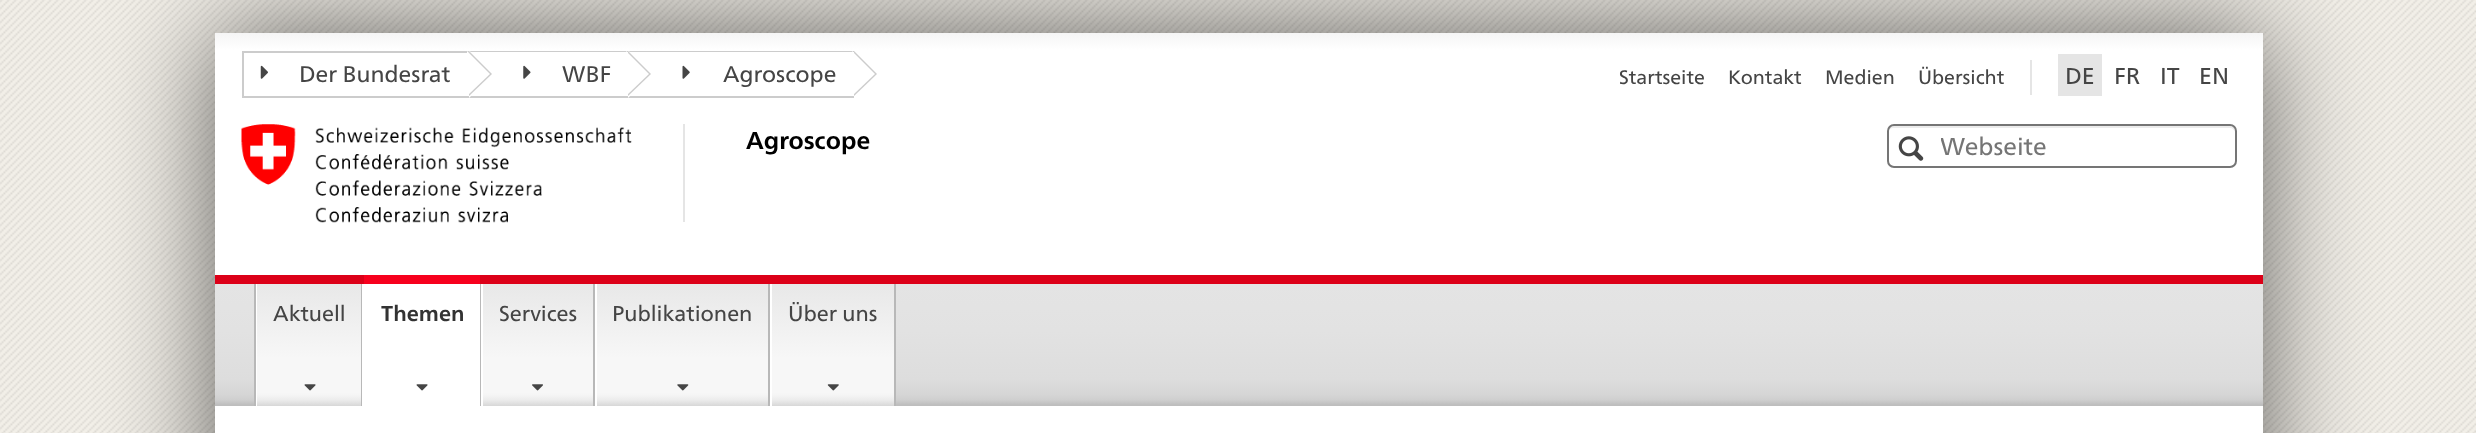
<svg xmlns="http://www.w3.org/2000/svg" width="2476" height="433">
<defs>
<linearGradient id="g1" gradientUnits="userSpaceOnUse" x1="1239" y1="33" x2="1239" y2="275"><stop offset="0" stop-color="#f5f5f5"/><stop offset="0.07" stop-color="#fff"/><stop offset="1" stop-color="#fff"/></linearGradient>
<clipPath id="clip1"><rect x="1941" y="131" width="241" height="28"/></clipPath>
<linearGradient id="g2" gradientUnits="userSpaceOnUse" x1="1239" y1="283" x2="1239" y2="406"><stop offset="0" stop-color="#e4e4e4"/><stop offset="0.39" stop-color="#e2e2e2"/><stop offset="0.79" stop-color="#ddd"/><stop offset="0.91" stop-color="#d5d5d5"/><stop offset="0.95" stop-color="#cfcfcf"/><stop offset="0.99" stop-color="#bebebe"/></linearGradient>
<linearGradient id="g3" gradientUnits="userSpaceOnUse" x1="309" y1="284" x2="309" y2="406"><stop offset="0" stop-color="#e8e8e8"/><stop offset="0.61" stop-color="#f7f7f7"/><stop offset="0.89" stop-color="#f7f7f7"/><stop offset="0.91" stop-color="#f5f5f5"/><stop offset="0.95" stop-color="#ececec"/><stop offset="1" stop-color="#d7d7d7"/></linearGradient>
<linearGradient id="g4" gradientUnits="userSpaceOnUse" x1="538" y1="284" x2="538" y2="406"><stop offset="0" stop-color="#e8e8e8"/><stop offset="0.61" stop-color="#f7f7f7"/><stop offset="0.89" stop-color="#f7f7f7"/><stop offset="0.91" stop-color="#f5f5f5"/><stop offset="0.95" stop-color="#ececec"/><stop offset="1" stop-color="#d7d7d7"/></linearGradient>
<linearGradient id="g5" gradientUnits="userSpaceOnUse" x1="683" y1="284" x2="683" y2="406"><stop offset="0" stop-color="#e8e8e8"/><stop offset="0.61" stop-color="#f7f7f7"/><stop offset="0.89" stop-color="#f7f7f7"/><stop offset="0.91" stop-color="#f5f5f5"/><stop offset="0.95" stop-color="#ececec"/><stop offset="1" stop-color="#d7d7d7"/></linearGradient>
<linearGradient id="g6" gradientUnits="userSpaceOnUse" x1="833" y1="284" x2="833" y2="406"><stop offset="0" stop-color="#e8e8e8"/><stop offset="0.61" stop-color="#f7f7f7"/><stop offset="0.89" stop-color="#f7f7f7"/><stop offset="0.91" stop-color="#f5f5f5"/><stop offset="0.95" stop-color="#ececec"/><stop offset="1" stop-color="#d7d7d7"/></linearGradient>
</defs>
<rect width="100%" height="100%" fill="#fff"/>
<image x="0" y="0" width="2476" height="433" href="media/1.png"/>
<rect x="215" y="33" width="2048" height="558" fill="#00000099" filter="blur(52.5px)"/>
<rect x="215" y="406" width="2048" height="27" fill="#fff"/>
<rect x="215" y="33" width="2048" height="242" fill="url(#g1)"/>
<rect x="242" y="51" width="227" height="2" fill="#ccc"/>
<rect x="242" y="96" width="227" height="2" fill="#ccc"/>
<rect x="242" y="51" width="2" height="47" fill="#ccc"/>
<path d="M469 96v-45l23 23z" fill="#ccc"/>
<path d="M467 96v-45l23 23z" fill="#fff"/>
<image x="260" y="65" width="8" height="14" href="media/2.png"/>
<text x="299" y="82" style="font-family:'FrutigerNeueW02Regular';font-size:22.75px;fill:#454545">Der Bundesrat</text>
<path d="M469 51h159v1h-157z" fill="#ccc"/>
<path d="M628 98h-159l2-2h157z" fill="#ccc"/>
<path d="M628 96v-45l23 23z" fill="#ccc"/>
<path d="M626 96v-45l23 23z" fill="#fff"/>
<image x="523" y="65" width="8" height="14" href="media/3.png"/>
<text x="562" y="82" style="font-family:'FrutigerNeueW02Regular';font-size:22.75px;fill:#454545">WBF</text>
<path d="M628 51h226v1h-224z" fill="#ccc"/>
<path d="M854 98h-226l2-2h224z" fill="#ccc"/>
<path d="M854 96v-45l23 23z" fill="#ccc"/>
<path d="M852 96v-45l23 23z" fill="#fff"/>
<image x="682" y="65" width="8" height="14" href="media/4.png"/>
<text x="723" y="82" style="font-family:'FrutigerNeueW02Regular';font-size:22.75px;fill:#454545">Agroscope</text>
<text x="1619" y="84" style="font-family:'FrutigerNeueW02Regular';font-size:19.5px;fill:#454545">Startseite</text>
<text x="1728" y="84" style="font-family:'FrutigerNeueW02Regular';font-size:19.5px;fill:#454545">Kontakt</text>
<text x="1825" y="84" style="font-family:'FrutigerNeueW02Regular';font-size:19.5px;fill:#454545">Medien</text>
<text x="1918" y="84" style="font-family:'FrutigerNeueW02Regular';font-size:19.5px;fill:#454545">Übersicht</text>
<rect x="2030" y="60" width="2" height="35" fill="#e5e5e5"/>
<rect x="2058" y="54" width="44" height="42" fill="#e5e5e5"/>
<text x="2065" y="84" style="font-family:'FrutigerNeueW02Regular';font-size:23px;fill:#454545">DE</text>
<text x="2114" y="84" style="font-family:'FrutigerNeueW02Regular';font-size:23px;fill:#454545">FR</text>
<text x="2160" y="84" style="font-family:'FrutigerNeueW02Regular';font-size:23px;fill:#454545">IT</text>
<text x="2199" y="84" style="font-family:'FrutigerNeueW02Regular';font-size:23px;fill:#454545">EN</text>
<rect x="683" y="124" width="2" height="98" fill="#e5e5e5"/>
<image x="241" y="124" width="391" height="99" href="media/5.png"/>
<text x="746" y="149" style="font-family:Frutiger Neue;font-size:24.5px;font-weight:bold;fill:#000">Agroscope</text>
<path d="M1894 128h336c2 0 5 2 5 5c0-3-1-7-5-7h-337c-4 0-5 4-5 7c0-3 3-5 6-5z" fill="#ececec"/>
<rect x="1888" y="125" width="348" height="42" rx="6" fill="none" stroke="#757575" stroke-width="2"/>
<image x="1898" y="136" width="26" height="25" href="media/6.png"/>
<g clip-path="url(#clip1)">
<text x="1940" y="155" style="font-family:'FrutigerNeueW02Regular';font-size:24.5px;fill:#757575">Webseite</text>
</g>
<rect x="215" y="284" width="2048" height="122" fill="url(#g2)"/>
<rect x="215" y="275" width="2048" height="9" fill="#dc0018"/>
<rect x="254" y="284" width="2" height="122" fill="#b8b8b8"/>
<rect x="361" y="284" width="1" height="122" fill="#b8b8b8"/>
<rect x="256" y="284" width="1" height="122" fill="#fff"/>
<rect x="257" y="284" width="104" height="122" fill="url(#g3)"/>
<text x="273" y="321" style="font-family:'FrutigerNeueW02Regular';font-size:21.5px;fill:#454545">Aktuell</text>
<image x="304" y="384" width="12" height="7" href="media/7.png"/>
<rect x="480" y="284" width="1" height="122" fill="#b8b8b8"/>
<rect x="362" y="284" width="118" height="122" fill="#fff"/>
<rect x="364" y="275" width="116" height="9" fill="#f7001d"/>
<text x="381" y="321" style="font-family:Frutiger Neue;font-size:21.5px;font-weight:bold;fill:#333">Themen</text>
<image x="416" y="384" width="12" height="7" href="media/8.png"/>
<rect x="593" y="284" width="2" height="122" fill="#b8b8b8"/>
<rect x="481" y="284" width="2" height="122" fill="#fff"/>
<rect x="483" y="284" width="110" height="122" fill="url(#g4)"/>
<text x="499" y="321" style="font-family:'FrutigerNeueW02Regular';font-size:21.5px;fill:#454545">Services</text>
<image x="532" y="384" width="11" height="7" href="media/9.png"/>
<rect x="768" y="284" width="2" height="122" fill="#b8b8b8"/>
<rect x="595" y="284" width="2" height="122" fill="#fff"/>
<rect x="597" y="284" width="171" height="122" fill="url(#g5)"/>
<text x="612" y="321" style="font-family:'FrutigerNeueW02Regular';font-size:21.5px;fill:#454545">Publikationen</text>
<image x="677" y="384" width="12" height="7" href="media/10.png"/>
<rect x="894" y="284" width="2" height="122" fill="#b8b8b8"/>
<rect x="770" y="284" width="2" height="122" fill="#fff"/>
<rect x="772" y="284" width="122" height="122" fill="url(#g6)"/>
<text x="788" y="321" style="font-family:'FrutigerNeueW02Regular';font-size:21.5px;fill:#454545">Über uns</text>
<image x="827" y="384" width="12" height="7" href="media/11.png"/>
</svg>
